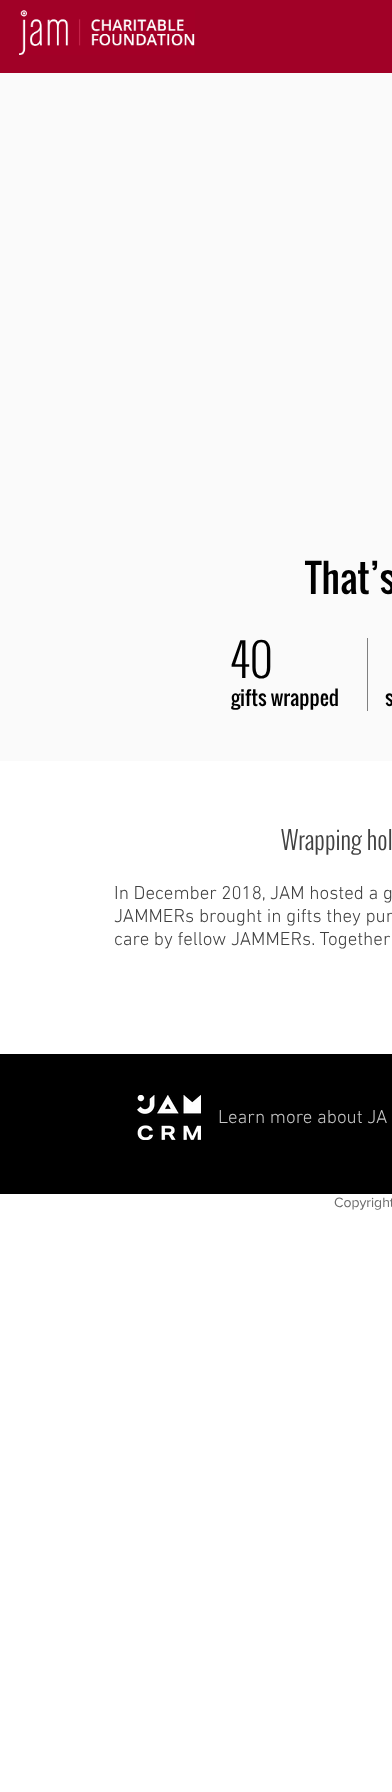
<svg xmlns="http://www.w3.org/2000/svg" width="392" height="1792">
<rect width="100%" height="100%" fill="#fff"/>
<rect width="392" height="73" fill="#a10127"/>
<image x="19" y="10" width="176" height="45" href="media/1.png"/>
<rect y="73" width="392" height="688" fill="#fafafa"/>
<text x="305" y="594" style="font-family:Oswald;font-size:38px;fill:#000">That’s</text>
<text x="231" y="678" style="font-family:Oswald;font-size:45px;font-weight:300;fill:#000">40</text>
<text x="231" y="706" style="font-family:Oswald;font-size:20px;fill:#000">gifts wrapped</text>
<rect x="367" y="638" width="1" height="73" fill="#808080"/>
<text x="385" y="706" style="font-family:Oswald;font-size:20px;fill:#000">s</text>
<text x="281" y="850" style="font-family:Oswald;font-size:25px;font-weight:300;fill:#414141">Wrapping hol</text>
<text x="114" y="899" style="font-family:'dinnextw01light';font-size:19px;font-weight:300;fill:#414141">In December 2018, JAM hosted a g</text>
<text x="114" y="922" style="font-family:'dinnextw01light';font-size:19px;font-weight:300;fill:#414141">JAMMERs brought in gifts they pur</text>
<text x="114" y="945" style="font-family:'dinnextw01light';font-size:19px;font-weight:300;fill:#414141">care by fellow JAMMERs. Together</text>
<rect y="1054" width="392" height="140" fill="#000"/>
<image x="137" y="1095" width="64" height="45" href="media/2.png"/>
<text x="218" y="1123" style="font-family:'dinnextw01light';font-size:19px;font-weight:300;fill:#c7c7c7">Learn more about JA</text>
<text x="334" y="1207" style="font-family:'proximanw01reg';font-size:14px;fill:#6b6b6b">Copyright</text>
</svg>
